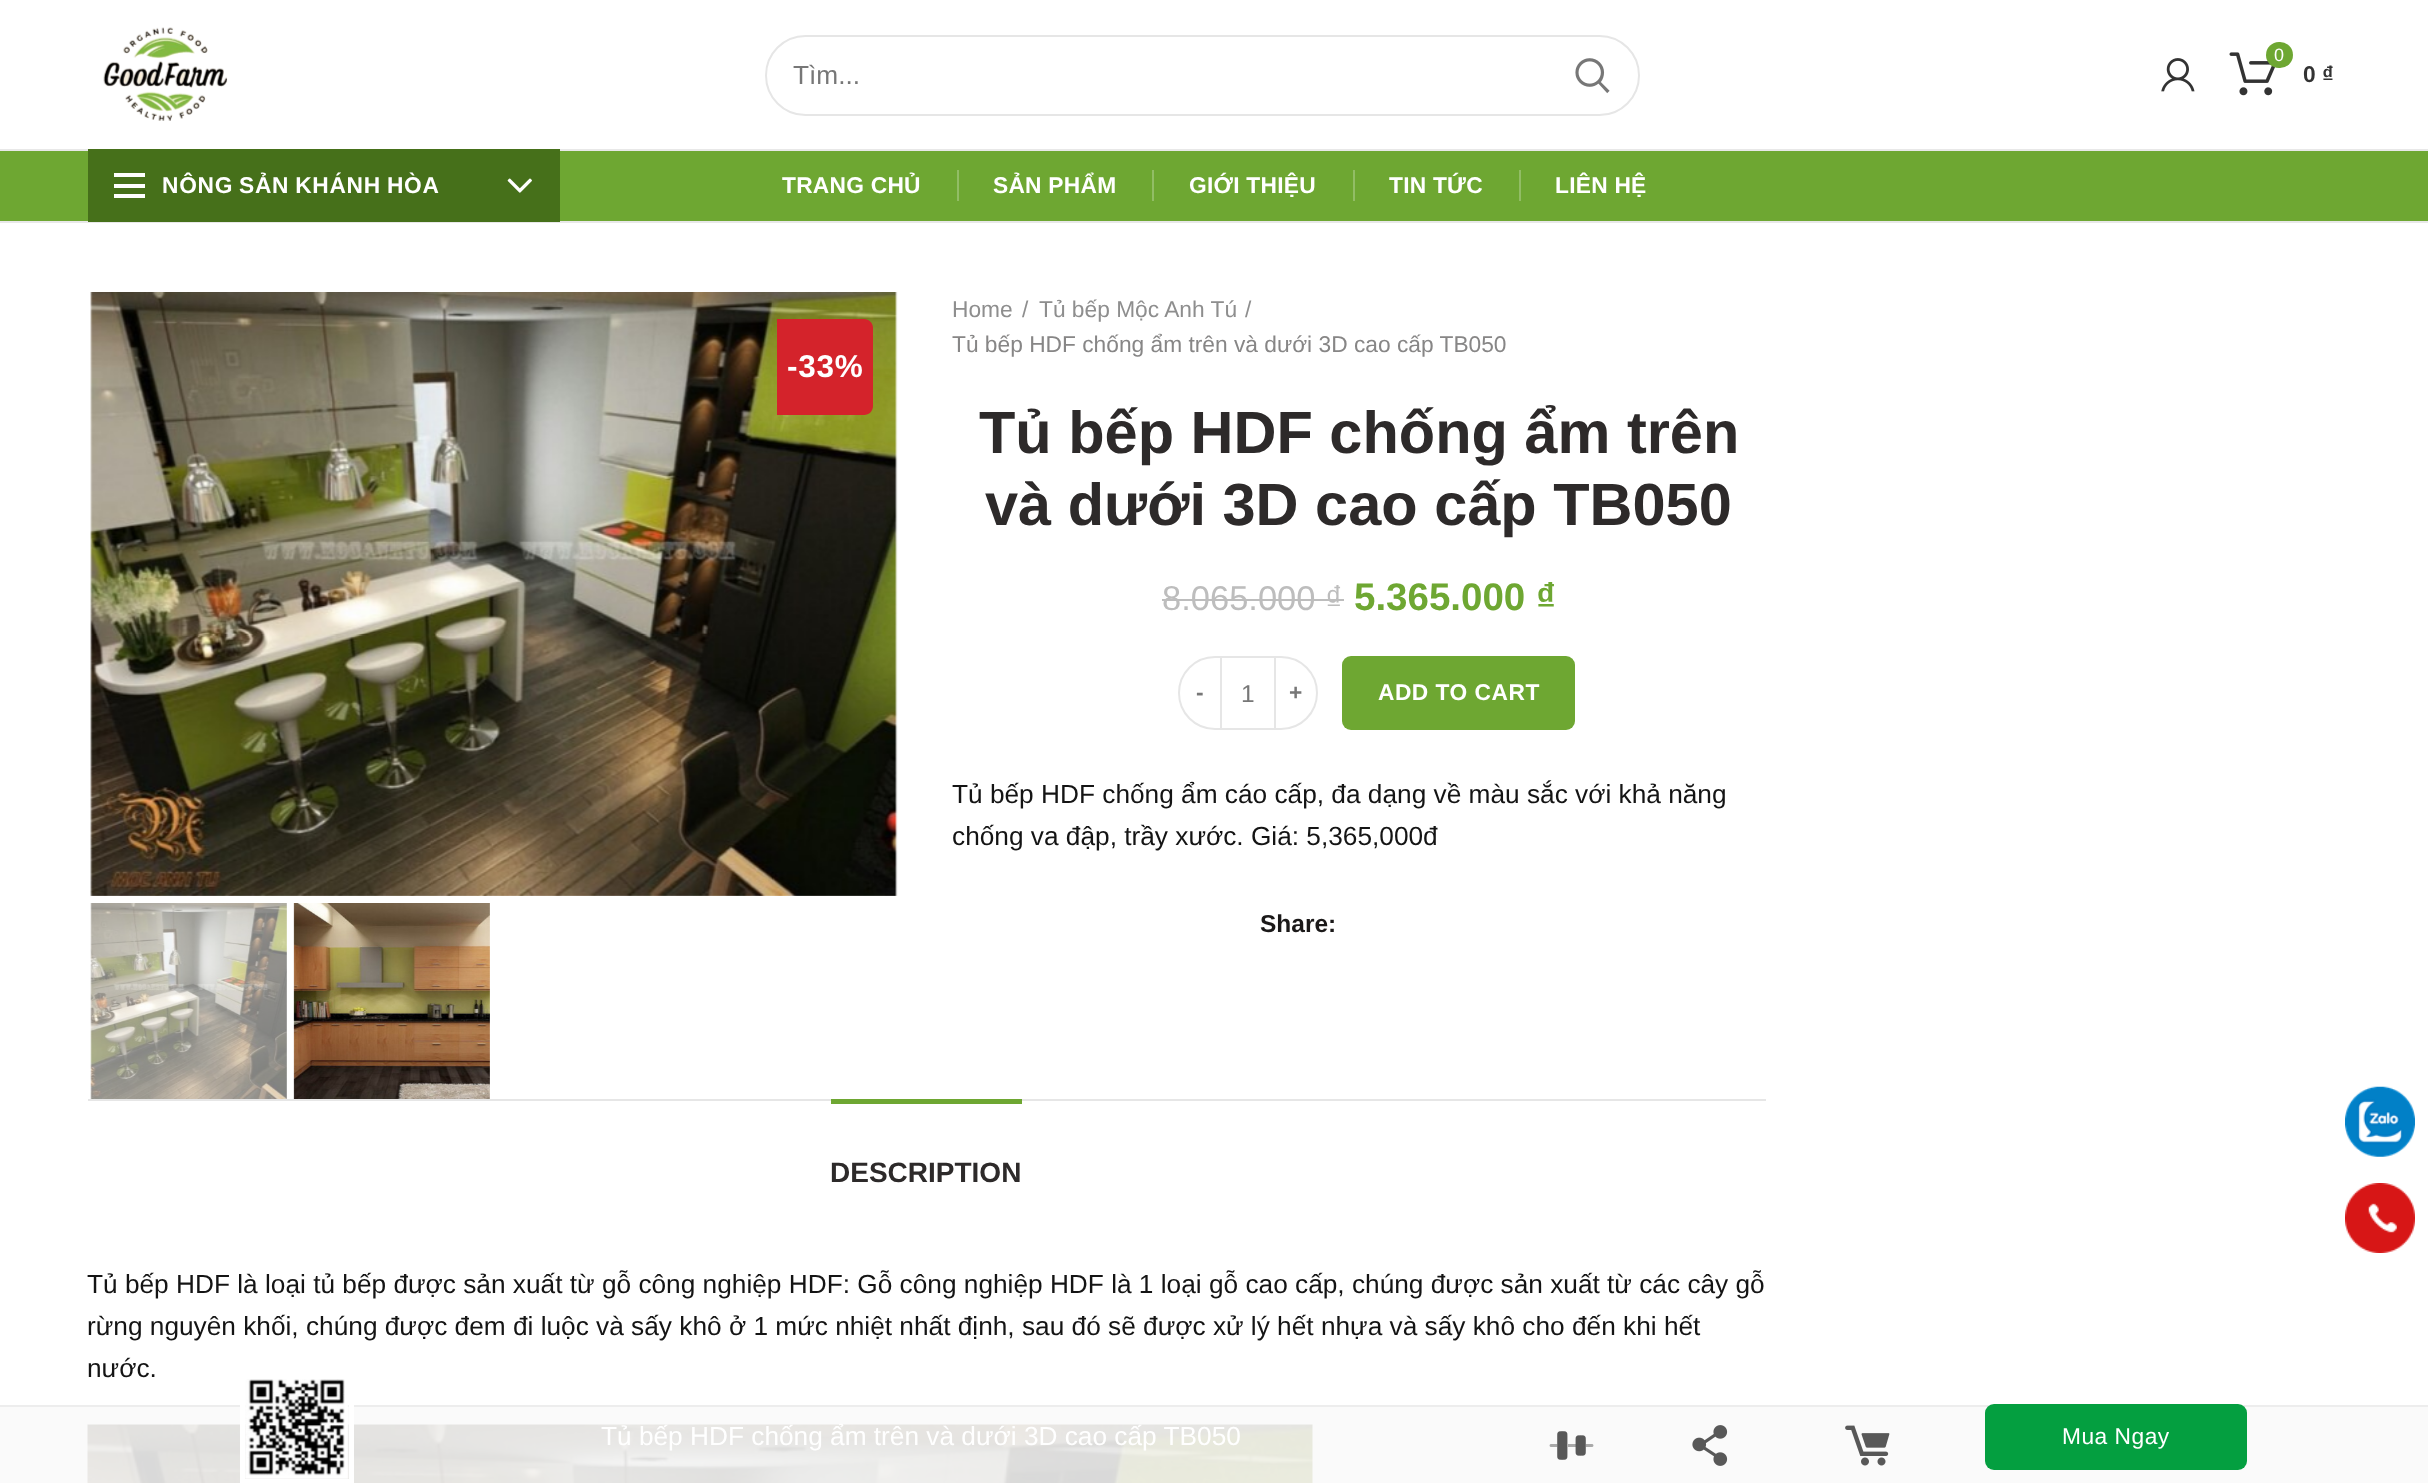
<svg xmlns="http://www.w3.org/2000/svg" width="2428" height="1483">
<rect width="100%" height="100%" fill="#fff"/>
<rect y="1407" width="2428" height="76" fill="#fafafa"/>
<rect y="149" width="2428" height="2" fill="#e8e8e8"/>
<image x="103" y="27" width="125" height="94" href="media/1.png"/>
<rect x="766" y="36" width="873" height="79" rx="39.5" fill="none" stroke="#e6e6e6" stroke-width="2"/>
<text x="793" y="84" style="font-family:Liberation Sans;font-size:26.25px;fill:#777">Tìm...</text>
<image x="1575" y="58" width="35" height="36" href="media/2.png"/>
<image x="2161" y="58" width="34" height="34" href="media/3.png"/>
<image x="2229" y="52" width="46" height="44" href="media/4.png"/>
<rect x="2266" y="42" width="27" height="26" rx="13" fill="#6ea732"/>
<text x="2274" y="61" style="font-family:Liberation Sans;font-size:18px;fill:#fff">0</text>
<text x="2303" y="82" style="font-family:Liberation Sans;font-size:22.75px;font-weight:bold;fill:#333">0 ₫</text>
<rect y="151" width="2428" height="70" fill="#6ea732"/>
<rect y="221" width="2428" height="2" fill="#e8e8e8"/>
<rect x="88" y="149" width="472" height="73" fill="#46701a"/>
<rect x="114" y="184" width="31" height="4" fill="#fff"/>
<rect x="114" y="173" width="31" height="4" fill="#fff"/>
<rect x="114" y="194" width="31" height="4" fill="#fff"/>
<text x="162" y="193" word-spacing="-1" style="font-family:Liberation Sans;font-size:22.75px;font-weight:bold;letter-spacing:0.7px;fill:#fff">NÔNG SẢN KHÁNH HÒA</text>
<image x="507" y="178" width="25" height="15" href="media/5.png"/>
<text x="782" y="193" style="font-family:Liberation Sans;font-size:22.75px;font-weight:bold;letter-spacing:0.25px;fill:#fff">TRANG CHỦ</text>
<rect x="957" y="170" width="2" height="31" fill="#92bd65"/>
<text x="993" y="193" style="font-family:Liberation Sans;font-size:22.75px;font-weight:bold;letter-spacing:0.25px;fill:#fff">SẢN PHẨM</text>
<rect x="1152" y="170" width="2" height="31" fill="#92bd65"/>
<text x="1189" y="193" style="font-family:Liberation Sans;font-size:22.75px;font-weight:bold;letter-spacing:0.25px;fill:#fff">GIỚI THIỆU</text>
<rect x="1353" y="170" width="2" height="31" fill="#92bd65"/>
<text x="1389" y="193" style="font-family:Liberation Sans;font-size:22.75px;font-weight:bold;letter-spacing:0.25px;fill:#fff">TIN TỨC</text>
<rect x="1519" y="170" width="2" height="31" fill="#92bd65"/>
<text x="1555" y="193" style="font-family:Liberation Sans;font-size:22.75px;font-weight:bold;letter-spacing:0.25px;fill:#fff">LIÊN HỆ</text>
<text x="952" y="317" style="font-family:Liberation Sans;font-size:22.75px;fill:#8e8e8e">Home</text>
<text x="1022" y="317" style="font-family:Liberation Sans;font-size:22.75px;fill:#8e8e8e">/</text>
<text x="1039" y="317" style="font-family:Liberation Sans;font-size:22.75px;fill:#8e8e8e">Tủ bếp Mộc Anh Tú</text>
<text x="1245" y="317" style="font-family:Liberation Sans;font-size:22.75px;fill:#8e8e8e">/</text>
<text x="952" y="352" style="font-family:Liberation Sans;font-size:22.75px;fill:#878686">Tủ bếp HDF chống ẩm trên và dưới 3D cao cấp TB050</text>
<text x="979" y="453" style="font-family:Liberation Sans;font-size:59.5px;font-weight:bold;fill:#2d2a2a">Tủ bếp HDF chống ẩm trên</text>
<text x="985" y="525" style="font-family:Liberation Sans;font-size:59.5px;font-weight:bold;fill:#2d2a2a">và dưới 3D cao cấp TB050</text>
<text x="1162" y="610" style="font-family:Liberation Sans;font-size:34.5px;fill:#bdbdbd">8.065.000 ₫</text>
<rect x="1162" y="599" width="182" height="2" fill="#bdbdbd"/>
<text x="1354" y="610" style="font-family:Liberation Sans;font-size:38.5px;font-weight:bold;fill:#6ea732">5.365.000 ₫</text>
<path d="M1215 657h6v72h-6c-20 0-36-16-36-36c0-20 16-36 36-36z" fill="none" stroke="#e6e6e6" stroke-width="2"/>
<text x="1196" y="700" style="font-family:Liberation Sans;font-size:22.75px;font-weight:bold;letter-spacing:0.5px;fill:#777">-</text>
<rect x="1222" y="656" width="52" height="2" fill="#e6e6e6"/>
<rect x="1222" y="728" width="52" height="2" fill="#e6e6e6"/>
<text x="1241" y="702" style="font-family:Liberation Sans;font-size:24.5px;fill:#777">1</text>
<path d="M1275 657h6c20 0 36 16 36 36c0 20-16 36-36 36h-6z" fill="none" stroke="#e6e6e6" stroke-width="2"/>
<text x="1289" y="700" style="font-family:Liberation Sans;font-size:22.75px;font-weight:bold;letter-spacing:0.5px;fill:#777">+</text>
<rect x="1342" y="656" width="233" height="74" rx="9" fill="#6ea732"/>
<text x="1378" y="700" style="font-family:Liberation Sans;font-size:22.75px;font-weight:bold;letter-spacing:0.5px;fill:#fff">ADD TO CART</text>
<text x="952" y="803" style="font-family:Liberation Sans;font-size:26.25px;fill:#141414">Tủ bếp HDF chống ẩm cáo cấp, đa dạng về màu sắc với khả năng</text>
<text x="952" y="845" style="font-family:Liberation Sans;font-size:26.25px;fill:#141414">chống va đập, trầy xước. Giá: 5,365,000đ</text>
<text x="1260" y="932" style="font-family:Liberation Sans;font-size:24.5px;font-weight:bold;fill:#1b1919">Share:</text>
<rect y="1405" width="2428" height="2" fill="#ededed"/>
<image x="87" y="1424" width="1226" height="59" href="media/13.png"/>
<rect x="242.5" y="1372.5" width="109" height="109" fill="none" stroke="#fff" stroke-width="5"/>
<image x="245" y="1379" width="104" height="100" href="media/6.png"/>
<text x="601" y="1445" style="font-family:Liberation Sans;font-size:26.25px;fill:#fff">Tủ bếp HDF chống ẩm trên và dưới 3D cao cấp TB050</text>
<image x="1549" y="1431" width="45" height="29" href="media/7.png"/>
<image x="1692" y="1425" width="36" height="41" href="media/8.png"/>
<image x="1845" y="1425" width="45" height="41" href="media/9.png"/>
<rect x="1985" y="1404" width="262" height="66" rx="9" fill="#049f40"/>
<text x="2062" y="1444" style="font-family:Liberation Sans;font-size:22.75px;letter-spacing:0.5px;fill:#fff">Mua Ngay</text>
<image x="90" y="292" width="808" height="604" href="media/10.png"/>
<image x="90" y="903" width="197" height="196" href="media/11.png"/>
<image x="293" y="903" width="197" height="196" href="media/12.png"/>
<path d="M777 319h87c5 0 9 4 9 9v78c0 5-4 9-9 9h-87z" fill="#d4232b"/>
<text x="787" y="377" style="font-family:Liberation Sans;font-size:31.5px;font-weight:bold;letter-spacing:0.7px;fill:#fff">-33%</text>
<rect x="88" y="1099" width="1678" height="2" fill="#e6e6e6"/>
<rect x="831" y="1099" width="191" height="5" fill="#6ea732"/>
<text x="830" y="1182" style="font-family:Liberation Sans;font-size:28px;font-weight:bold;fill:#2d2a2a">DESCRIPTION</text>
<text x="87" y="1293" style="font-family:Liberation Sans;font-size:26.25px;fill:#141414">Tủ bếp HDF là loại tủ bếp được sản xuất từ gỗ công nghiệp HDF: Gỗ công nghiệp HDF là 1 loại gỗ cao cấp, chúng được sản xuất từ các cây gỗ</text>
<text x="87" y="1335" style="font-family:Liberation Sans;font-size:26.25px;fill:#141414">rừng nguyên khối, chúng được đem đi luộc và sấy khô ở 1 mức nhiệt nhất định, sau đó sẽ được xử lý hết nhựa và sấy khô cho đến khi hết</text>
<text x="87" y="1377" style="font-family:Liberation Sans;font-size:26.25px;fill:#141414">nước.</text>
<image x="2345" y="1086" width="70" height="71" href="media/14.png"/>
<image x="2345" y="1183" width="70" height="70" href="media/15.png"/>
</svg>
